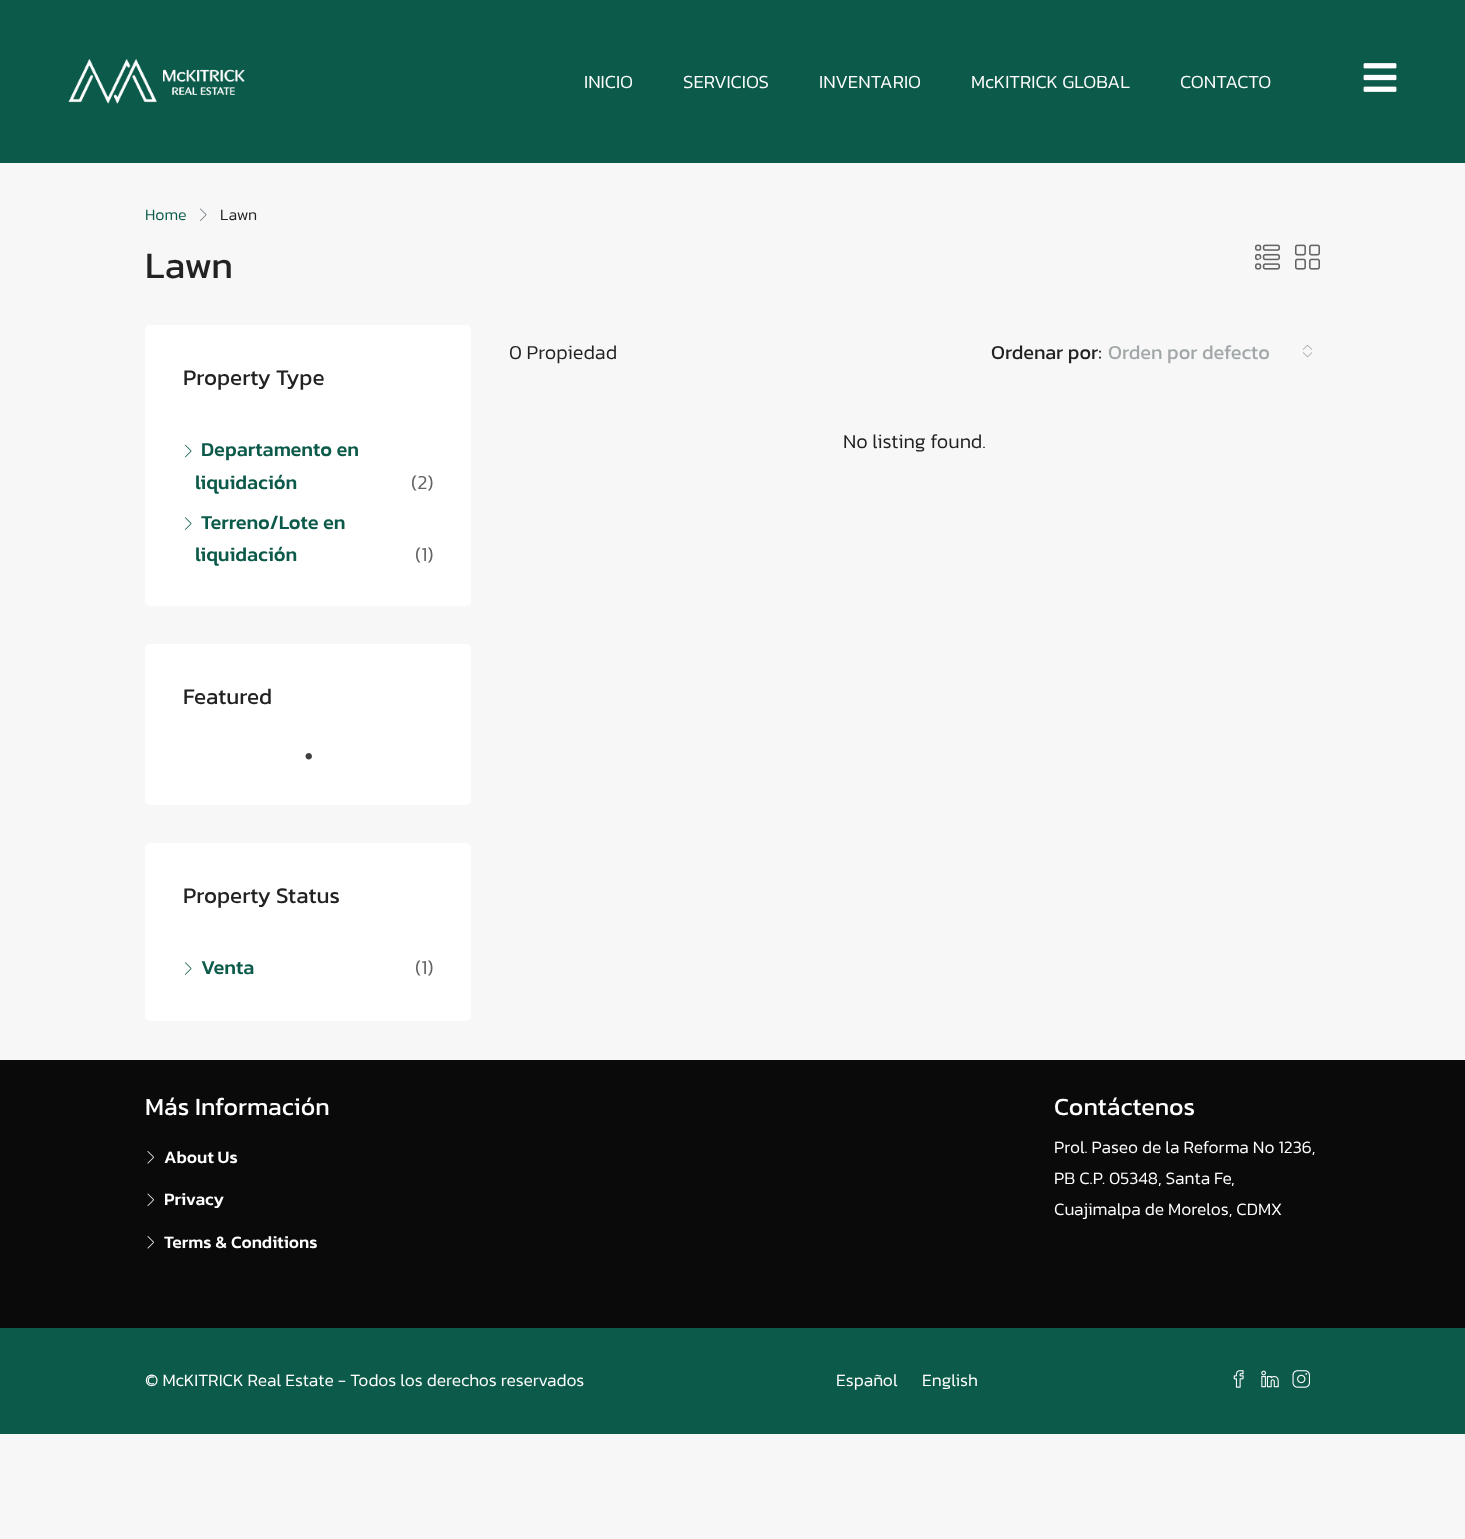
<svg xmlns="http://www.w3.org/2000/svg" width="1465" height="1539">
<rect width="100%" height="100%" fill="#f7f7f7"/>
<rect width="1465" height="163" fill="#0c5a4a"/>
<image x="68" y="58" width="177" height="46" href="media/1.png"/>
<text x="584" y="88" style="font-family:Kanit;font-size:18.75px;font-weight:300;fill:#fff">INICIO</text>
<text x="683" y="88" style="font-family:Kanit;font-size:18.75px;font-weight:300;fill:#fff">SERVICIOS</text>
<text x="819" y="88" style="font-family:Kanit;font-size:18.75px;font-weight:300;fill:#fff">INVENTARIO</text>
<text x="971" y="88" style="font-family:Kanit;font-size:18.75px;font-weight:300;fill:#fff">McKITRICK GLOBAL</text>
<text x="1180" y="88" style="font-family:Kanit;font-size:18.75px;font-weight:300;fill:#fff">CONTACTO</text>
<image x="1363" y="63" width="34" height="29" href="media/2.png"/>
<text x="145" y="220" style="font-family:Kanit;font-size:16px;font-weight:300;fill:#0c5a4a">Home</text>
<image x="200" y="208" width="7" height="13" href="media/3.png"/>
<text x="220" y="220" style="font-family:Kanit;font-size:16px;font-weight:300;fill:#222">Lawn</text>
<text x="145" y="278" style="font-family:Kanit;font-size:37.5px;fill:#222">Lawn</text>
<image x="1255" y="244" width="25" height="26" href="media/4.png"/>
<image x="1295" y="244" width="25" height="26" href="media/5.png"/>
<rect x="145" y="325" width="326" height="281" rx="5" fill="#fff"/>
<text x="183" y="385" style="font-family:Kanit;font-size:22.5px;fill:#222">Property Type</text>
<image x="185" y="444" width="7" height="14" href="media/6.png"/>
<text x="201" y="456" style="font-family:Kanit;font-size:20px;font-weight:500;fill:#0c5a4a">Departamento en</text>
<text x="195" y="489" style="font-family:Kanit;font-size:20px;font-weight:500;fill:#0c5a4a">liquidación</text>
<text x="411" y="489" style="font-family:Kanit;font-size:20px;font-weight:300;fill:#636363">(2)</text>
<image x="185" y="517" width="7" height="13" href="media/7.png"/>
<text x="201" y="529" style="font-family:Kanit;font-size:20px;font-weight:500;fill:#0c5a4a">Terreno/Lote en</text>
<text x="195" y="561" style="font-family:Kanit;font-size:20px;font-weight:500;fill:#0c5a4a">liquidación</text>
<text x="415" y="561" style="font-family:Kanit;font-size:20px;font-weight:300;fill:#636363">(1)</text>
<rect x="145" y="644" width="326" height="161" rx="5" fill="#fff"/>
<text x="183" y="704" style="font-family:Kanit;font-size:22.5px;fill:#222">Featured</text>
<image x="305" y="753" width="7" height="7" href="media/8.png"/>
<rect x="145" y="843" width="326" height="178" rx="5" fill="#fff"/>
<text x="183" y="903" style="font-family:Kanit;font-size:22.5px;fill:#222">Property Status</text>
<image x="185" y="962" width="7" height="13" href="media/7.png"/>
<text x="201" y="974" style="font-family:Kanit;font-size:20px;font-weight:500;fill:#0c5a4a">Venta</text>
<text x="415" y="974" style="font-family:Kanit;font-size:20px;font-weight:300;fill:#636363">(1)</text>
<text x="509" y="359" style="font-family:Kanit;font-size:20px;font-weight:300;fill:#222">0 Propiedad</text>
<text x="991" y="359" style="font-family:Kanit;font-size:20px;fill:#222">Ordenar por:</text>
<text x="1108" y="359" style="font-family:Kanit;font-size:20px;fill:#a1a7a8">Orden por defecto</text>
<image x="1302" y="345" width="11" height="13" href="media/9.png"/>
<text x="843" y="448" style="font-family:Kanit;font-size:20px;font-weight:300;fill:#222">No listing found.</text>
<rect y="1060" width="1465" height="268" fill="#0a0a0a"/>
<text x="145" y="1115" style="font-family:Kanit;font-size:25px;fill:#fff">Más Información</text>
<image x="147" y="1151" width="7" height="13" href="media/10.png"/>
<text x="164" y="1163" style="font-family:Kanit;font-size:17.5px;font-weight:500;fill:#fff">About Us</text>
<image x="147" y="1193" width="7" height="13" href="media/11.png"/>
<text x="164" y="1205" style="font-family:Kanit;font-size:17.5px;font-weight:500;fill:#fff">Privacy</text>
<image x="147" y="1236" width="7" height="13" href="media/10.png"/>
<text x="164" y="1248" style="font-family:Kanit;font-size:17.5px;font-weight:500;fill:#fff">Terms &amp; Conditions</text>
<text x="1054" y="1115" style="font-family:Kanit;font-size:25px;fill:#fff">Contáctenos</text>
<text x="1054" y="1153" style="font-family:Kanit;font-size:17.5px;font-weight:300;fill:#fff">Prol. Paseo de la Reforma No 1236,</text>
<text x="1054" y="1184" style="font-family:Kanit;font-size:17.5px;font-weight:300;fill:#fff">PB C.P. 05348, Santa Fe,</text>
<text x="1054" y="1215" style="font-family:Kanit;font-size:17.5px;font-weight:300;fill:#fff">Cuajimalpa de Morelos, CDMX</text>
<rect y="1328" width="1465" height="106" fill="#0c5a4a"/>
<text x="145" y="1386" style="font-family:Kanit;font-size:17.5px;font-weight:300;fill:#fff">© McKITRICK Real Estate - Todos los derechos reservados</text>
<text x="836" y="1386" style="font-family:Kanit;font-size:17.5px;font-weight:300;fill:#fff">Español</text>
<text x="922" y="1386" style="font-family:Kanit;font-size:17.5px;font-weight:300;fill:#fff">English</text>
<image x="1233" y="1370" width="11" height="18" href="media/12.png"/>
<image x="1261" y="1370" width="18" height="18" href="media/13.png"/>
<image x="1292" y="1370" width="18" height="18" href="media/14.png"/>
</svg>
